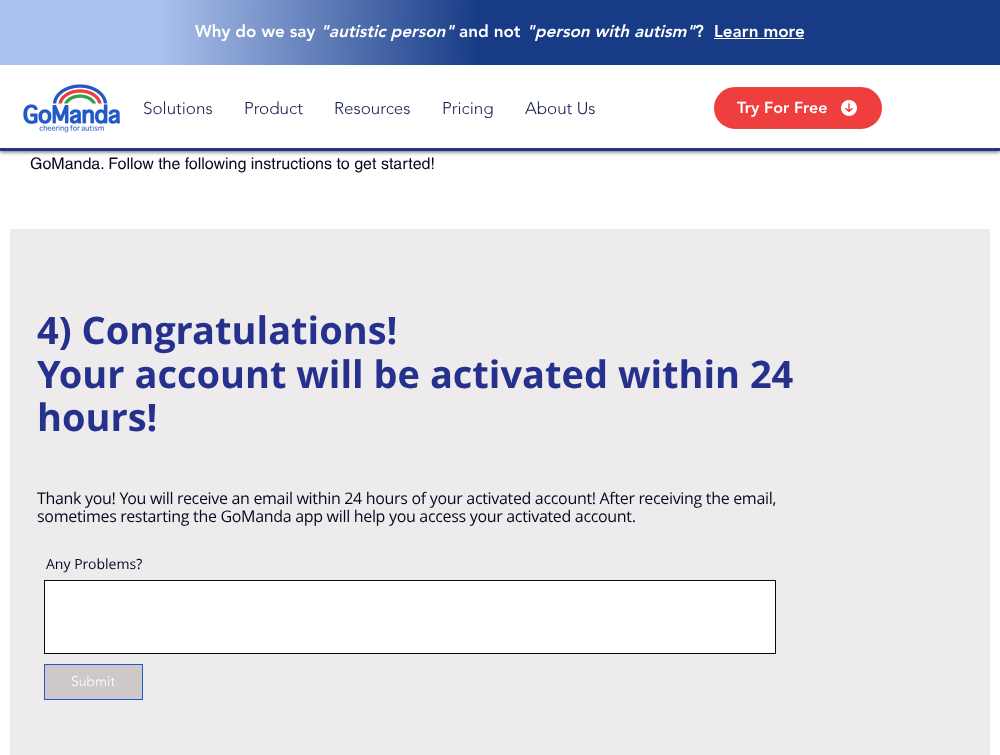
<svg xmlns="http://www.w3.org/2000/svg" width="1000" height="755">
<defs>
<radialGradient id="g1" gradientUnits="userSpaceOnUse" cx="1000" cy="33" r="1001"><stop offset="0.52" stop-color="#173b85"/><stop offset="0.84" stop-color="#abc1ed"/></radialGradient>
</defs>
<rect width="100%" height="100%" fill="#fff"/>
<rect y="1" width="1000" height="151" fill="#00000099" filter="blur(2px)"/>
<rect y="65" width="1000" height="83" fill="#fff"/>
<rect y="148" width="1000" height="3" fill="#25318d"/>
<rect width="1000" height="65" fill="url(#g1)"/>
<text x="195" y="37" style="font-family:'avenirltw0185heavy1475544';font-size:17px;font-weight:900;fill:#fff">Why do we say</text>
<text x="320" y="37" style="font-family:'avenirltw0185heavy1475544';font-size:17px;font-weight:900;font-style:italic;fill:#fff">"autistic person"</text>
<text x="459" y="37" style="font-family:'avenirltw0185heavy1475544';font-size:17px;font-weight:900;fill:#fff">and not</text>
<text x="526" y="37" style="font-family:'avenirltw0185heavy1475544';font-size:17px;font-weight:900;font-style:italic;fill:#fff">"person with autism"</text>
<text x="695" y="37" style="font-family:'avenirltw0185heavy1475544';font-size:17px;font-weight:900;fill:#fff">?</text>
<text x="714" y="37" style="font-family:'avenirltw0185heavy1475544';font-size:17px;font-weight:900;fill:#fff">Learn more</text>
<rect x="714" y="38" width="90" height="1" fill="#fff"/>
<image x="23" y="84" width="98" height="49" href="media/1.png"/>
<text x="143" y="114" style="font-family:'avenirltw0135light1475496';font-size:17px;font-weight:300;fill:#111a4f">Solutions</text>
<text x="244" y="114" style="font-family:'avenirltw0135light1475496';font-size:17px;font-weight:300;fill:#111a4f">Product</text>
<text x="334" y="114" style="font-family:'avenirltw0135light1475496';font-size:17px;font-weight:300;fill:#111a4f">Resources</text>
<text x="442" y="114" style="font-family:'avenirltw0135light1475496';font-size:17px;font-weight:300;fill:#111a4f">Pricing</text>
<text x="525" y="114" style="font-family:'avenirltw0135light1475496';font-size:17px;font-weight:300;fill:#111a4f">About Us</text>
<rect x="715" y="88" width="166" height="40" rx="20" fill="#ee3e3e" stroke="#ee3e3e" stroke-width="2"/>
<text x="737" y="113" style="font-family:'avenirltw0185heavy1475544';font-size:16px;font-weight:900;fill:#fff">Try For Free</text>
<image x="841" y="100" width="16" height="16" href="media/2.png"/>
<text x="30" y="169" style="font-family:helvetica;font-size:16px;fill:#07081f">GoManda. Follow the following instructions to get started!</text>
<rect x="10" y="229" width="980" height="526" fill="#edebeb"/>
<text x="37" y="344" style="font-family:Open Sans;font-size:38px;font-weight:bold;fill:#25318d">4) Congratulations!</text>
<text x="37" y="388" style="font-family:Open Sans;font-size:38px;font-weight:bold;fill:#25318d">Your account will be activated within 24</text>
<text x="37" y="431" style="font-family:Open Sans;font-size:38px;font-weight:bold;fill:#25318d">hours!</text>
<text x="37" y="504" style="font-family:Open Sans;font-size:16px;letter-spacing:-0.32px;fill:#07081f">Thank you! You will receive an email within 24 hours of your activated account! After receiving the email,</text>
<text x="37" y="522" style="font-family:Open Sans;font-size:16px;letter-spacing:-0.32px;fill:#07081f">sometimes restarting the GoManda app will help you access your activated account.</text>
<text x="46" y="569" style="font-family:Open Sans;font-size:14px;fill:#07081f">Any Problems?</text>
<rect x="44.5" y="580.5" width="731" height="73" fill="#fff" stroke="#07081f"/>
<rect x="44.5" y="664.5" width="98" height="35" fill="#cfc8c8" stroke="#2259c8"/>
<text x="71" y="686" style="font-family:'avenirltw0135light1475496';font-size:14px;font-weight:300;fill:#fff">Submit</text>
</svg>
